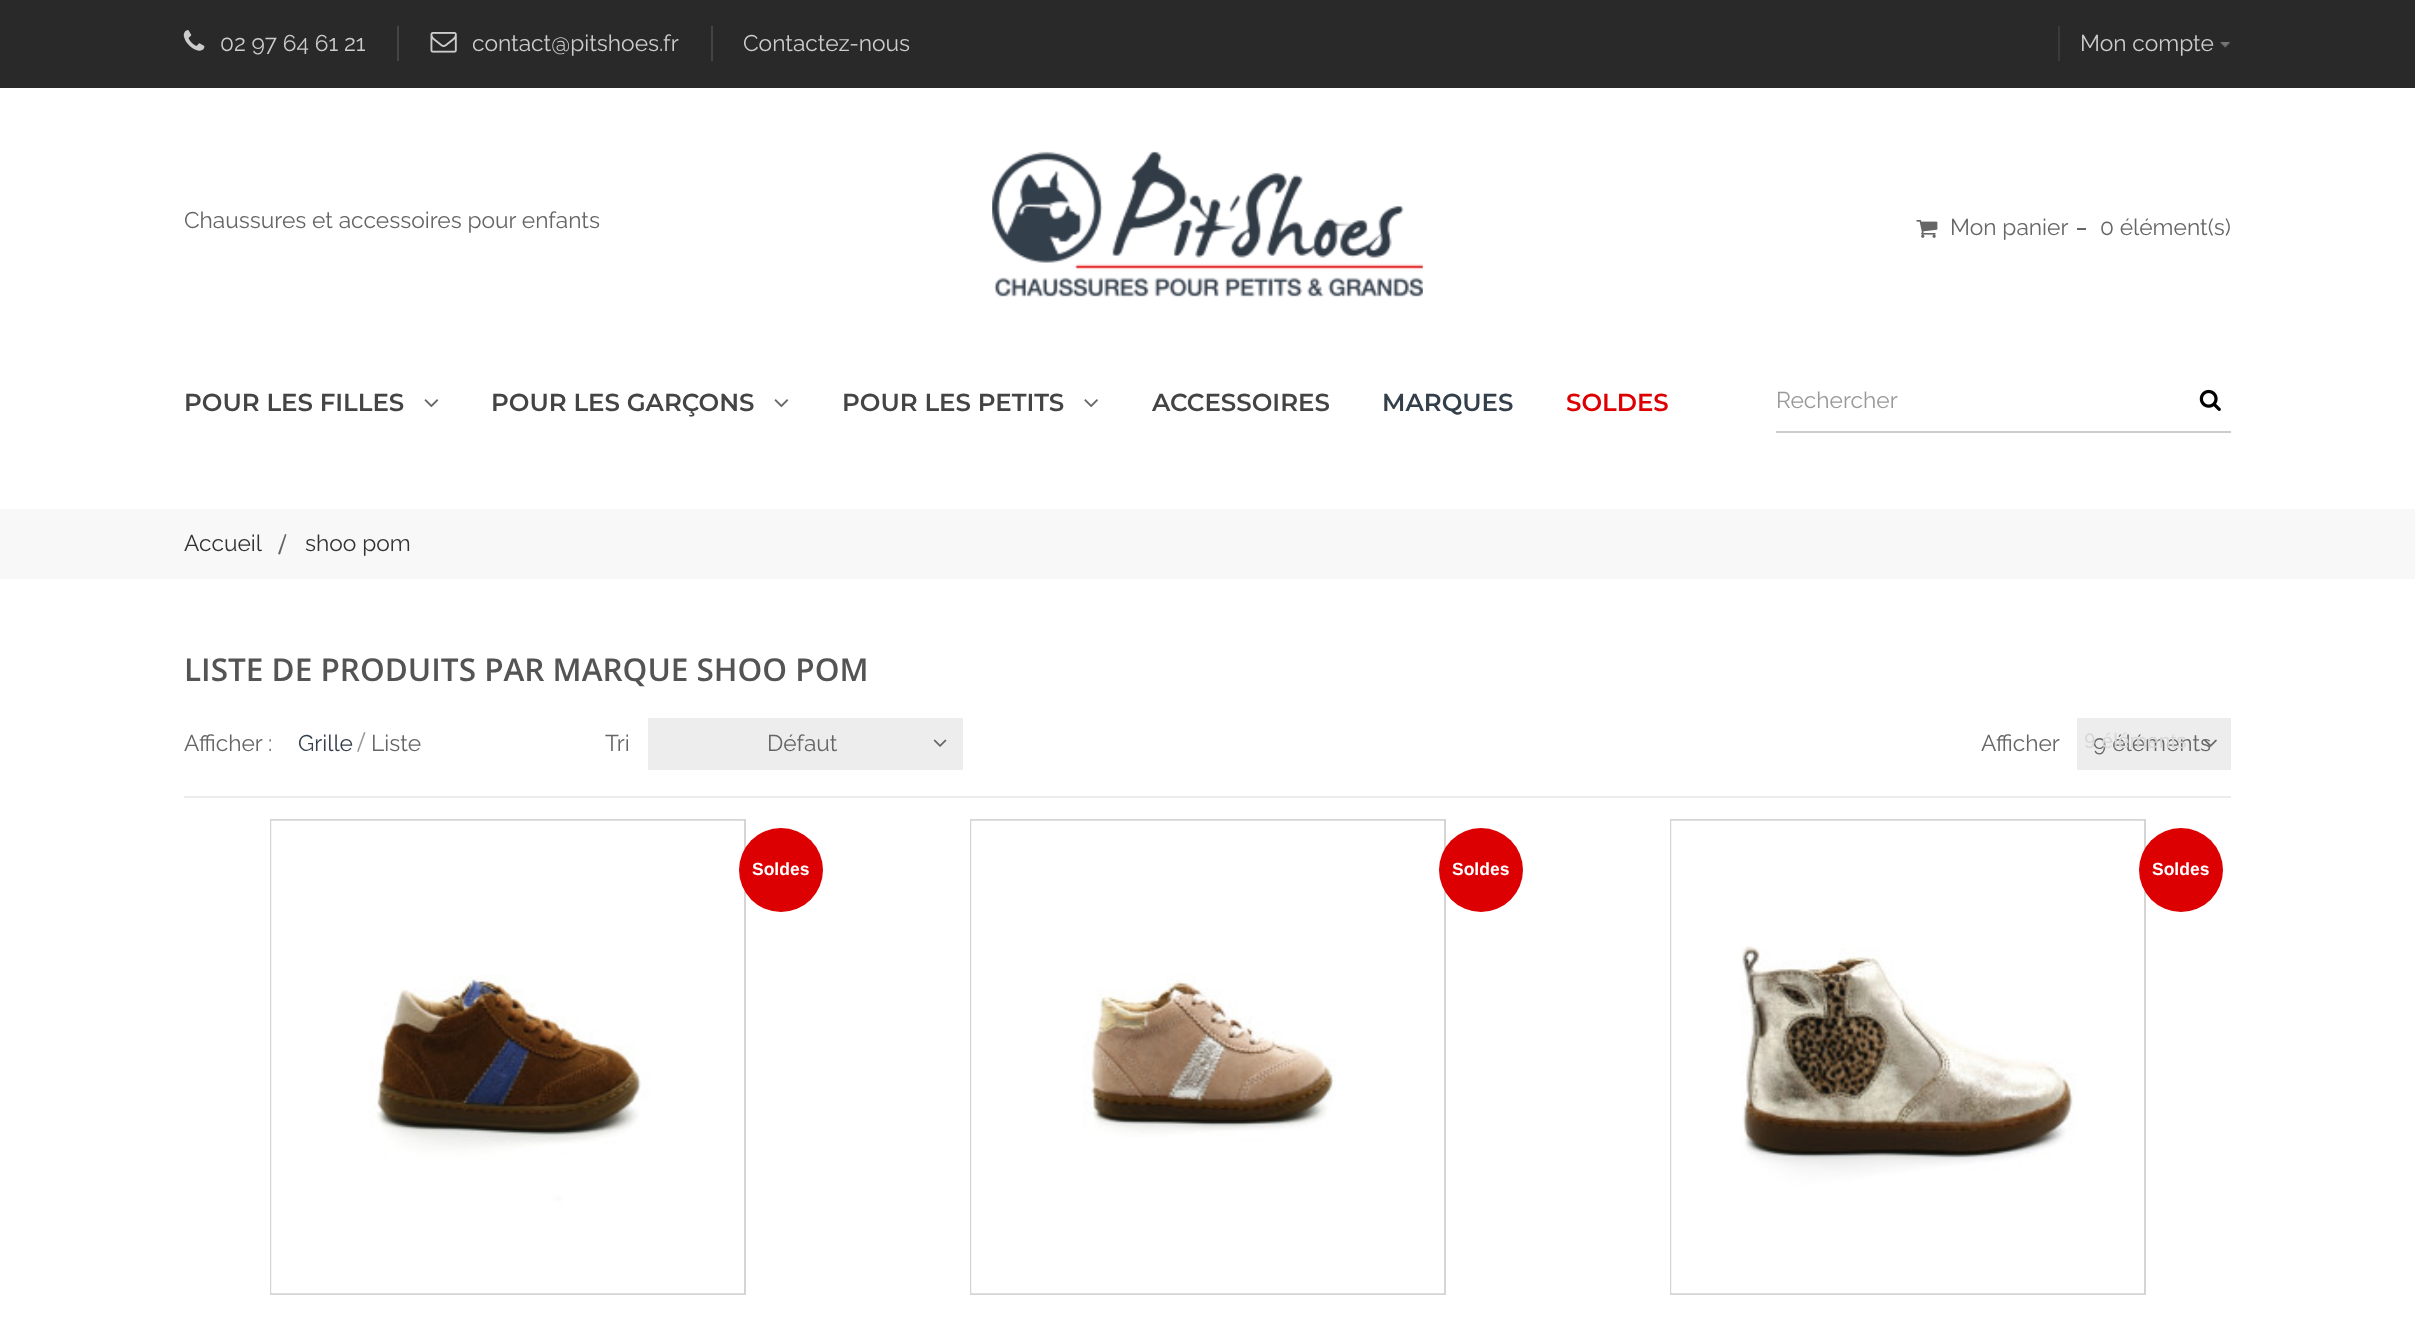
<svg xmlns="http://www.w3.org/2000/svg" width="2415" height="1333">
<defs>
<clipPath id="clip1"><rect x="473" y="26" width="206" height="35"/></clipPath>
</defs>
<rect width="100%" height="100%" fill="#fff"/>
<rect width="2415" height="88" fill="#292929"/>
<rect x="397" y="26" width="2" height="35" fill="#444"/>
<image x="183" y="30" width="22" height="21" href="media/1.png"/>
<text x="220" y="51" style="font-family:Raleway;font-size:22.75px;fill:#ccc">02 97 64 61 21</text>
<rect x="711" y="26" width="2" height="35" fill="#444"/>
<image x="430" y="32" width="27" height="21" href="media/2.png"/>
<g clip-path="url(#clip1)">
<text x="472" y="51" style="font-family:Raleway;font-size:22.75px;fill:#ccc">contact@pitshoes.fr</text>
</g>
<text x="743" y="51" style="font-family:Raleway;font-size:22.75px;fill:#ccc">Contactez-nous</text>
<image x="2220" y="42" width="10" height="6" href="media/3.png"/>
<rect x="2058" y="26" width="2" height="35" fill="#3a3a3a"/>
<text x="2080" y="51" style="font-family:Raleway;font-size:22.75px;fill:#ccc">Mon compte</text>
<text x="184" y="228" style="font-family:Raleway;font-size:22.75px;fill:#666">Chaussures et accessoires pour enfants</text>
<image x="992" y="151" width="431" height="146" href="media/4.png"/>
<image x="1916" y="220" width="22" height="18" href="media/5.png"/>
<text x="1950" y="235" style="font-family:Raleway;font-size:22.75px;fill:#666">Mon panier</text>
<rect x="2077" y="228" width="9" height="2" fill="#666"/>
<text x="2100" y="235" style="font-family:Raleway;font-size:22.75px;fill:#666">0 élément(s)</text>
<text x="184" y="411" style="font-family:Montserrat;font-size:24.5px;font-weight:600;fill:#444">POUR LES FILLES</text>
<image x="424" y="399" width="15" height="9" href="media/6.png"/>
<text x="491" y="411" style="font-family:Montserrat;font-size:24.5px;font-weight:600;fill:#444">POUR LES GARÇONS</text>
<image x="774" y="399" width="15" height="9" href="media/6.png"/>
<text x="842" y="411" style="font-family:Montserrat;font-size:24.5px;font-weight:600;fill:#444">POUR LES PETITS</text>
<image x="1084" y="399" width="14" height="9" href="media/7.png"/>
<text x="1152" y="411" style="font-family:Montserrat;font-size:24.5px;font-weight:600;fill:#444">ACCESSOIRES</text>
<text x="1382" y="411" style="font-family:Montserrat;font-size:24.5px;font-weight:600;fill:#343f4c">MARQUES</text>
<text x="1566" y="411" style="font-family:Montserrat;font-size:24.5px;font-weight:600;fill:#dd0002">SOLDES</text>
<rect x="1776" y="431" width="455" height="2" fill="#ccc"/>
<text x="1776" y="408" style="font-family:Raleway;font-size:22.75px;fill:#999">Rechercher</text>
<image x="2199" y="389" width="22" height="22" href="media/8.png"/>
<rect y="509" width="2415" height="70" fill="#f8f8f8"/>
<text x="184" y="551" style="font-family:Raleway;font-size:22.75px;fill:#333">Accueil</text>
<path d="M285 534l1.5 .5l-6.5 20l-2-.5z" fill="#666"/>
<text x="305" y="551" style="font-family:Raleway;font-size:22.75px;fill:#333">shoo pom</text>
<text x="184" y="681" style="font-family:Open Sans;font-size:31.5px;font-weight:600;fill:#555454">LISTE DE PRODUITS PAR MARQUE SHOO POM</text>
<rect x="184" y="796" width="2047" height="2" fill="#ececec"/>
<text x="184" y="751" style="font-family:Raleway;font-size:22.75px;fill:#666">Afficher :</text>
<text x="298" y="751" style="font-family:Raleway;font-size:22.75px;fill:#343f4c">Grille</text>
<path d="M364 732l1.5 .5l-7 19.5l-1.5-.5z" fill="#999"/>
<text x="371" y="751" style="font-family:Raleway;font-size:22.75px;fill:#666">Liste</text>
<text x="605" y="751" style="font-family:Raleway;font-size:22.75px;fill:#666">Tri</text>
<rect x="648" y="718" width="315" height="52" fill="#ededed"/>
<text x="767" y="751" style="font-family:Raleway;font-size:22.75px;fill:#666">Défaut</text>
<image x="933" y="739" width="14" height="8" href="media/9.png"/>
<text x="1981" y="751" style="font-family:Raleway;font-size:22.75px;fill:#666">Afficher</text>
<rect x="2077" y="718" width="154" height="52" fill="#ededed"/>
<text x="2093" y="751" style="font-family:Raleway;font-size:22.75px;fill:#666">9 éléments</text>
<text x="2084" y="748" style="font-family:Liberation Sans;font-size:21px;fill:#d7d7d7">9 éléments</text>
<image x="2204" y="739" width="13" height="8" href="media/10.png"/>
<rect x="271" y="820" width="474" height="474" fill="none" stroke="#d6d4d4" stroke-width="2"/>
<image x="271" y="820" width="473" height="474" href="media/11.png"/>
<circle cx="781" cy="870" r="42" fill="#dd0002"/>
<text x="752" y="875" style="font-family:Liberation Sans;font-size:17.5px;font-weight:bold;fill:#fff">Soldes</text>
<rect x="971" y="820" width="474" height="474" fill="none" stroke="#d6d4d4" stroke-width="2"/>
<image x="971" y="820" width="473" height="474" href="media/12.png"/>
<circle cx="1481" cy="870" r="42" fill="#dd0002"/>
<text x="1452" y="875" style="font-family:Liberation Sans;font-size:17.5px;font-weight:bold;fill:#fff">Soldes</text>
<rect x="1671" y="820" width="474" height="474" fill="none" stroke="#d6d4d4" stroke-width="2"/>
<image x="1671" y="820" width="473" height="474" href="media/13.png"/>
<circle cx="2181" cy="870" r="42" fill="#dd0002"/>
<text x="2152" y="875" style="font-family:Liberation Sans;font-size:17.5px;font-weight:bold;fill:#fff">Soldes</text>
</svg>
